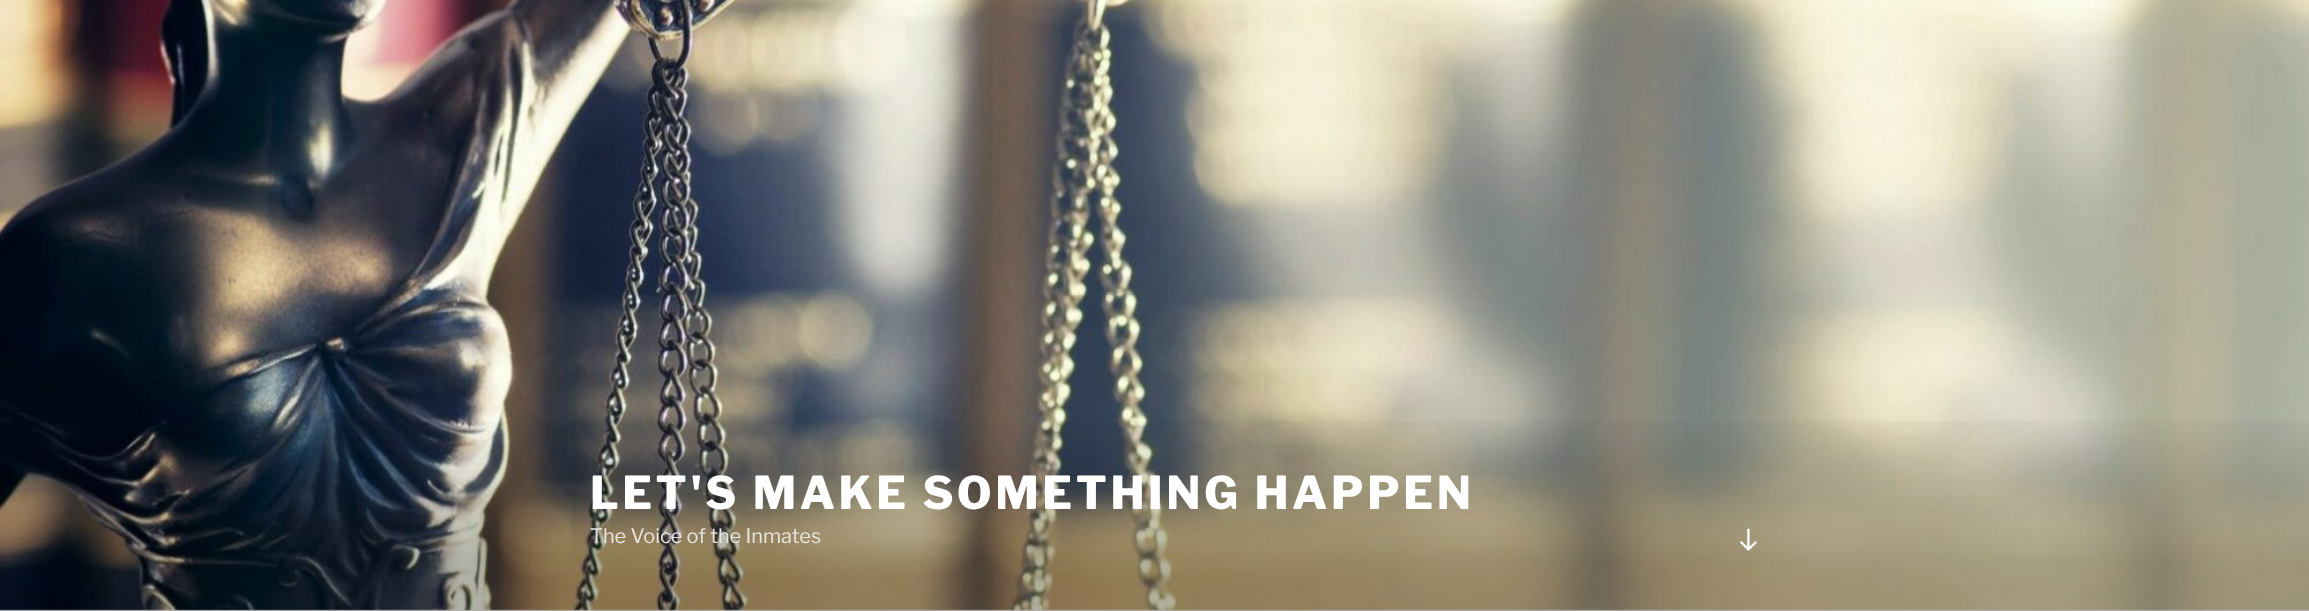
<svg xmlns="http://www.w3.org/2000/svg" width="2309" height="611">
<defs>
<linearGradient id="g1" gradientUnits="userSpaceOnUse" x1="1155" y1="410" x2="1155" y2="611"><stop offset="0" stop-color="#000" stop-opacity="0"/><stop offset="0.75" stop-color="#000" stop-opacity="0.3"/><stop offset="1" stop-color="#000" stop-opacity="0.3"/></linearGradient>
</defs>
<rect width="100%" height="100%" fill="#fafafa"/>
<image x="0" y="0" width="2309" height="611" href="media/1.png"/>
<rect y="421" width="2309" height="190" fill="url(#g1)"/>
<text x="590" y="509" style="font-family:Libre Franklin;font-size:45px;font-weight:100;letter-spacing:3.6px;fill:#fff">LET'S MAKE SOMETHING HAPPEN</text>
<text x="590" y="543" style="font-family:'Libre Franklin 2';font-size:20px;font-weight:100;fill:#e7e4df">The Voice of the Inmates</text>
<image x="1740" y="528" width="17" height="23" href="media/2.png"/>
</svg>
